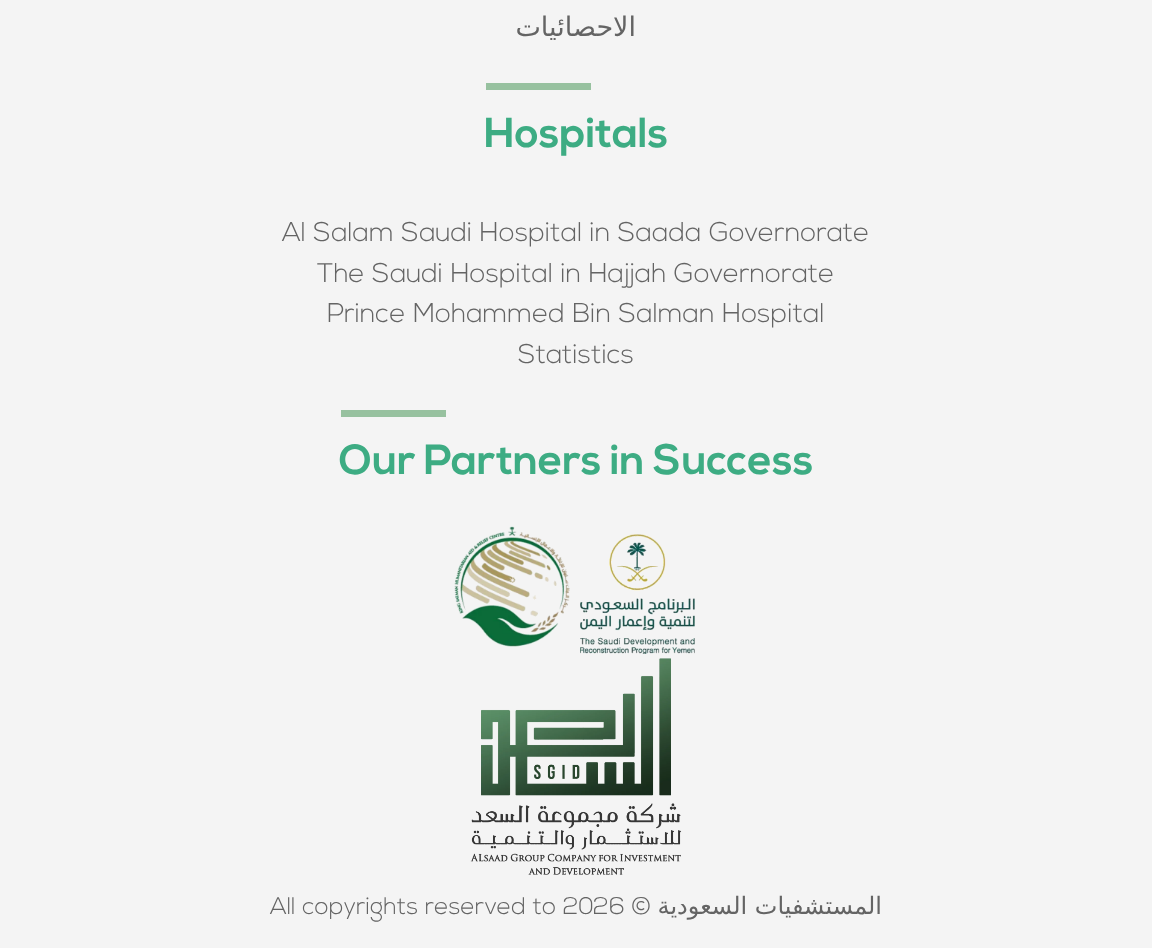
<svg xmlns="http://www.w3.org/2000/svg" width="1152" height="948">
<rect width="100%" height="100%" fill="#f4f4f4"/>
<text x="636" y="36" style="font-family:DejaVu Sans;font-size:27px;direction:rtl;fill:#646464">الاحصائيات</text>
<rect x="486" y="83" width="105" height="7" fill="#97c19f"/>
<text x="484" y="147" style="font-family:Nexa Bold;font-size:42px;font-weight:bold;fill:#3dac83">Hospitals</text>
<text x="282" y="241" style="font-family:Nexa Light;font-size:27px;font-weight:300;fill:#646464">Al Salam Saudi Hospital in Saada Governorate</text>
<text x="317" y="282" style="font-family:Nexa Light;font-size:27px;font-weight:300;fill:#646464">The Saudi Hospital in Hajjah Governorate</text>
<text x="327" y="322" style="font-family:Nexa Light;font-size:27px;font-weight:300;fill:#646464">Prince Mohammed Bin Salman Hospital</text>
<text x="518" y="363" style="font-family:Nexa Light;font-size:27px;font-weight:300;fill:#646464">Statistics</text>
<rect x="341" y="410" width="105" height="7" fill="#97c19f"/>
<text x="339" y="474" style="font-family:Nexa Bold;font-size:42px;font-weight:bold;fill:#3dac83">Our Partners in Success</text>
<image x="454" y="526" width="116" height="121" href="media/1.png"/>
<image x="580" y="534" width="115" height="120" href="media/2.png"/>
<image x="470" y="658" width="212" height="217" href="media/3.png"/>
<text x="270" y="914" style="font-family:Nexa Light;font-size:24px;font-weight:300;fill:#646464">All copyrights reserved to 2026</text>
<text x="652" y="914" style="font-family:Nexa Light;font-size:24px;font-weight:300;direction:rtl;fill:#646464">©</text>
<text x="882" y="914" style="font-family:DejaVu Sans;font-size:24px;direction:rtl;fill:#646464">المستشفيات السعودية</text>
</svg>
